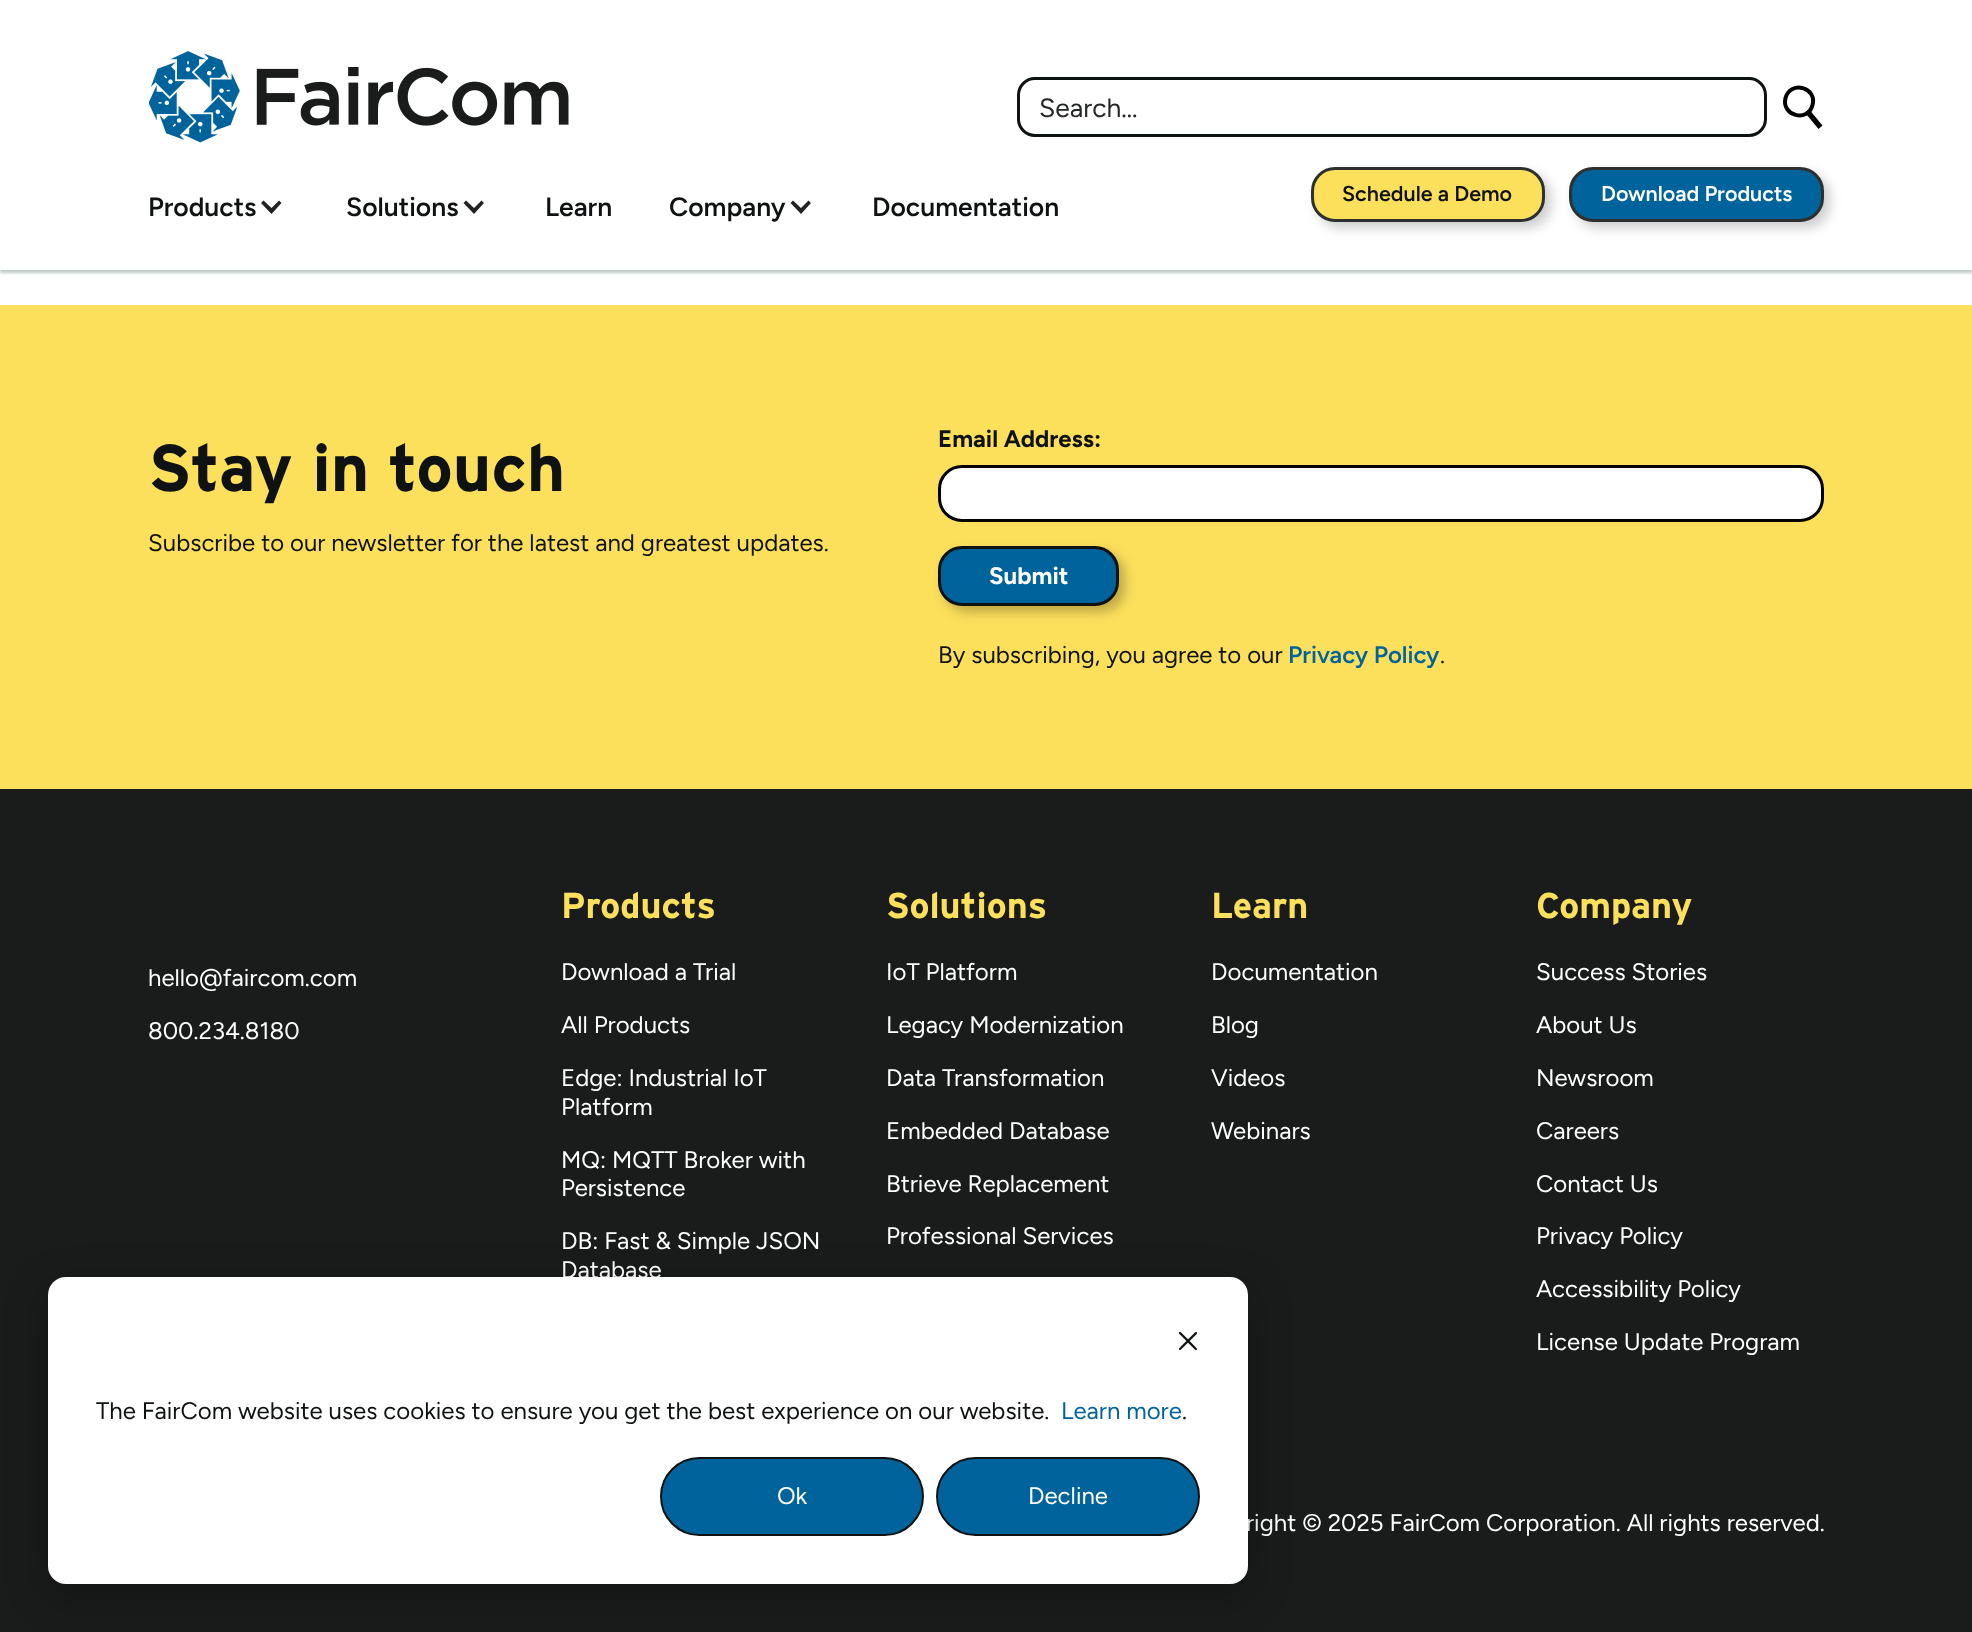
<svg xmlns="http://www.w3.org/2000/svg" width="1972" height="1632">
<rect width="100%" height="100%" fill="#fff"/>
<rect y="3" width="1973" height="270" fill="#c2c7c7" filter="blur(1.5px)"/>
<rect width="1972" height="270" fill="#fff"/>
<image x="149" y="51" width="420" height="92" href="media/1.png"/>
<rect x="1018.5" y="78.5" width="747" height="57" rx="16.5" fill="none" stroke="#0f1212" stroke-width="3"/>
<text x="1039" y="117" style="font-family:Figtree;font-size:26.5px;fill:#242626">Search…</text>
<path d="M1812.5 105c-4.5 18-31.5 10.5-27-7c5-18 32-10.5 27 7z" fill="none" stroke="#000" stroke-width="4"/>
<path d="M1810.5 111c-2.5-2.5-6.5 1-4 3.5zm-4 3.5l12 14.5l4-3.5l-12-14.5z" fill="#000"/>
<rect x="1317" y="173" width="234" height="55" rx="24" fill="#00000033" filter="blur(6px)"/>
<rect x="1312.5" y="168.5" width="231" height="52" rx="22.5" fill="#fce05c" stroke="#2e3030" stroke-width="3"/>
<text x="1342" y="201" style="font-family:Figtree;font-size:21.5px;font-weight:600;fill:#0f1212">Schedule a Demo</text>
<rect x="1575" y="173" width="255" height="55" rx="24" fill="#00000033" filter="blur(6px)"/>
<rect x="1570.5" y="168.5" width="252" height="52" rx="22.5" fill="#00639c" stroke="#2e3030" stroke-width="3"/>
<text x="1601" y="201" style="font-family:Figtree;font-size:21.5px;font-weight:600;fill:#fff">Download Products</text>
<text x="148" y="216" style="font-family:Figtree;font-size:26.5px;font-weight:600;fill:#0f1212">Products</text>
<path d="M279 200.5l-7.5 7.5l-8-7.5l-2.5 2.5l10.5 11l10-11z" fill="#222"/>
<text x="346" y="216" style="font-family:Figtree;font-size:26.5px;font-weight:600;fill:#0f1212">Solutions</text>
<path d="M481.5 200.5l-7.5 7.5l-8-7.5l-2.5 2.5l10.5 11l10-11z" fill="#222"/>
<text x="545" y="216" style="font-family:Figtree;font-size:26.5px;font-weight:600;fill:#0f1212">Learn</text>
<text x="669" y="216" style="font-family:Figtree;font-size:26.5px;font-weight:600;fill:#0f1212">Company</text>
<path d="M808.5 200.5l-7.5 7.5l-8-7.5l-2.5 2.5l10.5 11l10-11z" fill="#222"/>
<text x="872" y="216" style="font-family:Figtree;font-size:26.5px;font-weight:600;fill:#0f1212">Documentation</text>
<rect y="305" width="1972" height="484" fill="#fce05c"/>
<text x="148" y="491" style="font-family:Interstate;font-size:66px;font-weight:bold;fill:#0f1212">Stay in touch</text>
<text x="148" y="551" style="font-family:Figtree;font-size:24px;fill:#0f1212">Subscribe to our newsletter for the latest and greatest updates.</text>
<text x="938" y="447" style="font-family:Figtree;font-size:24px;font-weight:bold;fill:#0f1212">Email Address:</text>
<rect x="939.5" y="466.5" width="883" height="54" rx="22.5" fill="#fff" stroke="#000" stroke-width="3"/>
<rect x="944" y="552" width="181" height="60" rx="24" fill="#00000040" filter="blur(6px)"/>
<rect x="939.5" y="547.5" width="178" height="57" rx="22.5" fill="#00639c" stroke="#0f1212" stroke-width="3"/>
<text x="989" y="584" style="font-family:Figtree;font-size:24px;font-weight:bold;fill:#fff">Submit</text>
<text x="938" y="663" style="font-family:Figtree;font-size:24px;fill:#0f1212">By subscribing, you agree to our</text>
<text x="1288" y="663" style="font-family:Figtree;font-size:24px;font-weight:600;fill:#00639c">Privacy Policy</text>
<text x="1440" y="663" style="font-family:Figtree;font-size:24px;fill:#0f1212">.</text>
<rect y="789" width="1972" height="843" fill="#1a1c1c"/>
<text x="148" y="986" style="font-family:Figtree;font-size:24px;fill:#fff">hello@faircom.com</text>
<text x="148" y="1039" style="font-family:Figtree;font-size:24px;fill:#fff">800.234.8180</text>
<text x="561" y="918" style="font-family:Interstate;font-size:36px;font-weight:bold;fill:#fce05c">Products</text>
<text x="561" y="980" style="font-family:Figtree;font-size:24px;fill:#fff">Download a Trial</text>
<text x="561" y="1033" style="font-family:Figtree;font-size:24px;fill:#fff">All Products</text>
<text x="561" y="1086" style="font-family:Figtree;font-size:24px;fill:#fff">Edge: Industrial IoT</text>
<text x="561" y="1115" style="font-family:Figtree;font-size:24px;fill:#fff">Platform</text>
<text x="561" y="1168" style="font-family:Figtree;font-size:24px;fill:#fff">MQ: MQTT Broker with</text>
<text x="561" y="1196" style="font-family:Figtree;font-size:24px;fill:#fff">Persistence</text>
<text x="561" y="1249" style="font-family:Figtree;font-size:24px;fill:#fff">DB: Fast &amp; Simple JSON</text>
<text x="561" y="1278" style="font-family:Figtree;font-size:24px;fill:#fff">Database</text>
<text x="886" y="918" style="font-family:Interstate;font-size:36px;font-weight:bold;fill:#fce05c">Solutions</text>
<text x="886" y="980" style="font-family:Figtree;font-size:24px;fill:#fff">IoT Platform</text>
<text x="886" y="1033" style="font-family:Figtree;font-size:24px;fill:#fff">Legacy Modernization</text>
<text x="886" y="1086" style="font-family:Figtree;font-size:24px;fill:#fff">Data Transformation</text>
<text x="886" y="1139" style="font-family:Figtree;font-size:24px;fill:#fff">Embedded Database</text>
<text x="886" y="1192" style="font-family:Figtree;font-size:24px;fill:#fff">Btrieve Replacement</text>
<text x="886" y="1244" style="font-family:Figtree;font-size:24px;fill:#fff">Professional Services</text>
<text x="1211" y="918" style="font-family:Interstate;font-size:36px;font-weight:bold;fill:#fce05c">Learn</text>
<text x="1211" y="980" style="font-family:Figtree;font-size:24px;fill:#fff">Documentation</text>
<text x="1211" y="1033" style="font-family:Figtree;font-size:24px;fill:#fff">Blog</text>
<text x="1211" y="1086" style="font-family:Figtree;font-size:24px;fill:#fff">Videos</text>
<text x="1211" y="1139" style="font-family:Figtree;font-size:24px;fill:#fff">Webinars</text>
<text x="1536" y="918" style="font-family:Interstate;font-size:36px;font-weight:bold;fill:#fce05c">Company</text>
<text x="1536" y="980" style="font-family:Figtree;font-size:24px;fill:#fff">Success Stories</text>
<text x="1536" y="1033" style="font-family:Figtree;font-size:24px;fill:#fff">About Us</text>
<text x="1536" y="1086" style="font-family:Figtree;font-size:24px;fill:#fff">Newsroom</text>
<text x="1536" y="1139" style="font-family:Figtree;font-size:24px;fill:#fff">Careers</text>
<text x="1536" y="1192" style="font-family:Figtree;font-size:24px;fill:#fff">Contact Us</text>
<text x="1536" y="1244" style="font-family:Figtree;font-size:24px;fill:#fff">Privacy Policy</text>
<text x="1536" y="1297" style="font-family:Figtree;font-size:24px;fill:#fff">Accessibility Policy</text>
<text x="1536" y="1350" style="font-family:Figtree;font-size:24px;fill:#fff">License Update Program</text>
<text x="1246" y="1531" style="font-family:Figtree;font-size:24px;fill:#fff">right © 2025 FairCom Corporation. All rights reserved.</text>
<rect x="48" y="1289" width="1200" height="307" rx="18" fill="#00000047" filter="blur(21px)"/>
<rect x="48" y="1277" width="1200" height="307" rx="18" fill="#fff"/>
<image x="1179" y="1331" width="18" height="20" href="media/2.png"/>
<text x="96" y="1419" style="font-family:'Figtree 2';font-size:24px;fill:#0f1212">The FairCom website uses cookies to ensure you get the best experience on our website.</text>
<text x="1061" y="1419" style="font-family:'Figtree 2';font-size:24px;fill:#00639c">Learn more</text>
<text x="1182" y="1419" style="font-family:'Figtree 2';font-size:24px;fill:#0f1212">.</text>
<rect x="661" y="1458" width="262" height="77" rx="38.5" fill="#00639c" stroke="#0f1212" stroke-width="2"/>
<text x="777" y="1504" style="font-family:'Figtree 2';font-size:24px;fill:#fff">Ok</text>
<rect x="937" y="1458" width="262" height="77" rx="38.5" fill="#00639c" stroke="#0f1212" stroke-width="2"/>
<text x="1028" y="1504" style="font-family:'Figtree 2';font-size:24px;fill:#fff">Decline</text>
</svg>
